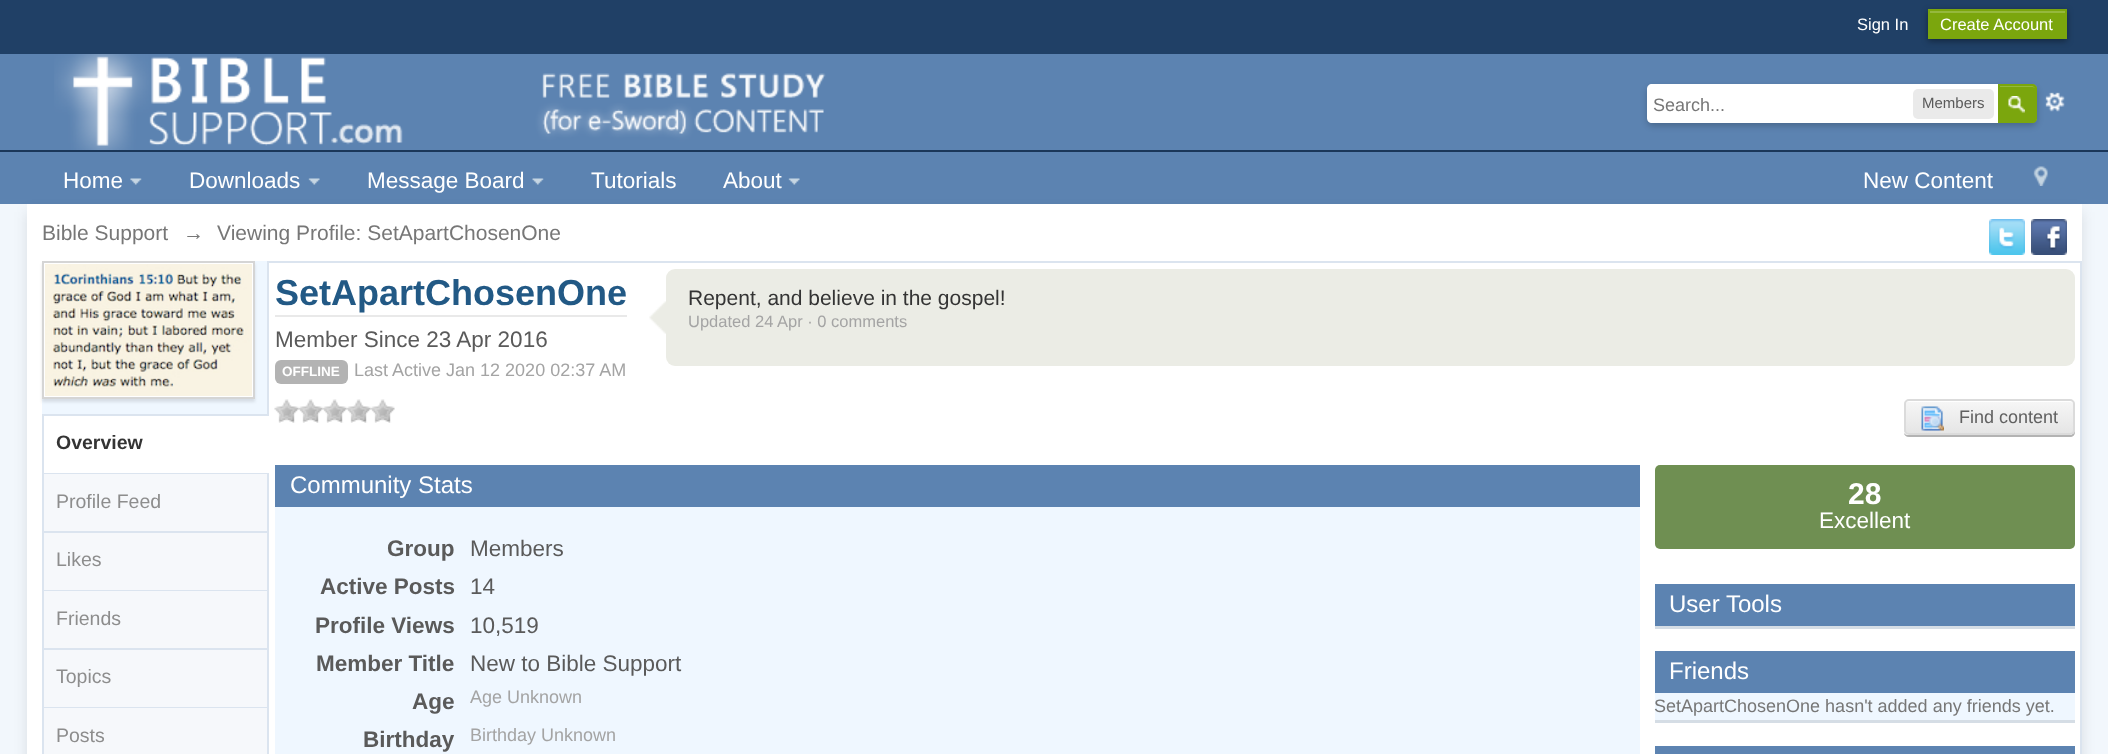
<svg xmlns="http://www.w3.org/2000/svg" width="2108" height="754">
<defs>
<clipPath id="clip1"><rect x="1904" y="399" width="171" height="36" rx="5"/></clipPath>
<linearGradient id="g1" gradientUnits="userSpaceOnUse" x1="1905" y1="401" x2="1905" y2="434"><stop offset="0" stop-color="#f6f6f6"/><stop offset="1" stop-color="#e5e5e5"/></linearGradient>
</defs>
<rect width="100%" height="100%" fill="#f2f7fc"/>
<rect width="2108" height="54" fill="#204066"/>
<text x="1857" y="30" style="font-family:Liberation Sans;font-size:16.5px;fill:#fff">Sign In</text>
<rect x="1928" y="11" width="139" height="30" fill="#00000066" filter="blur(3px)"/>
<rect x="1930" y="13" width="135" height="24" fill="#7ba60d"/>
<rect x="1929" y="11" width="137" height="2" fill="#95b83d"/>
<rect x="1929" y="10" width="137" height="28" fill="none" stroke="#7ba60d" stroke-width="2"/>
<text x="1940" y="30" style="font-family:Liberation Sans;font-size:16.5px;fill:#fff">Create Account</text>
<rect y="54" width="2108" height="96" fill="#5c83b1"/>
<rect y="150" width="2108" height="2" fill="#1b3759"/>
<image x="54" y="54" width="772" height="96" href="media/1.png"/>
<image x="2045" y="92" width="20" height="20" href="media/3.png"/>
<rect x="1647" y="87" width="390" height="39" rx="6" fill="#00000033" filter="blur(3px)"/>
<path d="M1652 84h379c3.5 0 6 2.5 6 6v27c0 3.5-2.5 6-6 6h-379c-3 0-5-2-5-5v-29c0-3 2-5 5-5z" fill="#fff"/>
<text x="1653" y="111" style="font-family:Liberation Sans;font-size:18px;fill:#777">Search...</text>
<rect x="1913" y="89" width="81" height="30" rx="5" fill="#eaeaea"/>
<text x="1922" y="108" style="font-family:Liberation Sans;font-size:15px;fill:#5a5a5a">Members</text>
<path d="M1998 84h34c3 0 5 2 5 5v29c0 3-2 5-5 5h-34z" fill="#7ba60d"/>
<image x="2008" y="96" width="17" height="17" href="media/2.png"/>
<path d="M2000 87h32c2 0 4 1 4 3v-1c0-1.5-1.5-3-3-3h-33z" fill="#95b83d"/>
<path d="M1999 85h33c2 0 4 2 4 4v29c0 2-2 4-4 4h-33z" fill="none" stroke="#7ba60d" stroke-width="2"/>
<rect y="152" width="2108" height="52" fill="#5c83b1"/>
<text x="63" y="188" style="font-family:Liberation Sans;font-size:22.5px;fill:#fff">Home</text>
<image x="130" y="178" width="12" height="7" href="media/4.png"/>
<text x="189" y="188" style="font-family:Liberation Sans;font-size:22.5px;fill:#fff">Downloads</text>
<image x="308" y="178" width="12" height="7" href="media/5.png"/>
<rect x="27" y="212" width="2055" height="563" fill="#0000001a" filter="blur(7px)"/>
<text x="367" y="188" style="font-family:Liberation Sans;font-size:22.5px;fill:#fff">Message Board</text>
<image x="532" y="178" width="12" height="7" href="media/6.png"/>
<text x="591" y="188" style="font-family:Liberation Sans;font-size:22.5px;fill:#fff">Tutorials</text>
<text x="723" y="188" style="font-family:Liberation Sans;font-size:22.5px;fill:#fff">About</text>
<image x="788" y="178" width="12" height="7" href="media/5.png"/>
<text x="1863" y="188" style="font-family:Liberation Sans;font-size:22.5px;fill:#fff">New Content</text>
<image x="2033" y="166" width="15" height="20" href="media/7.png"/>
<rect x="27" y="204" width="2055" height="550" fill="#fff"/>
<text x="42" y="240" style="font-family:Liberation Sans;font-size:21px;fill:#777">Bible Support</text>
<text x="183" y="240" style="font-family:Liberation Sans;font-size:21px;fill:#777">→</text>
<text x="217" y="240" style="font-family:Liberation Sans;font-size:21px;fill:#777">Viewing Profile: SetApartChosenOne</text>
<image x="1989" y="219" width="36" height="36" href="media/8.png"/>
<image x="2031" y="219" width="36" height="36" href="media/9.png"/>
<rect x="42" y="261" width="225" height="153" fill="#eff7ff"/>
<rect x="42" y="264" width="213" height="138" fill="#0000001a" filter="blur(1.5px)"/>
<rect x="43" y="262" width="211" height="136" fill="#fff" stroke="#d5d5d5" stroke-width="2"/>
<image x="45" y="264" width="207" height="132" href="media/10.png"/>
<rect x="42" y="414" width="225" height="2" fill="#dbe4ef"/>
<rect x="42" y="414" width="2" height="340" fill="#dbe4ef"/>
<rect x="44" y="473" width="223" height="1" fill="#dbe4ef"/>
<rect x="268" y="262" width="1813" height="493" fill="none" stroke="#dbe4ef" stroke-width="2"/>
<rect x="267" y="416" width="2" height="57" fill="#fff"/>
<text x="56" y="449" style="font-family:Liberation Sans;font-size:19.5px;font-weight:bold;fill:#343434">Overview</text>
<rect x="44" y="474" width="223" height="57" fill="#f6f8fb"/>
<rect x="44" y="531" width="223" height="2" fill="#dbe4ef"/>
<text x="56" y="508" style="font-family:Liberation Sans;font-size:19.5px;fill:#8d8d8d">Profile Feed</text>
<rect x="44" y="533" width="223" height="57" fill="#f6f8fb"/>
<rect x="44" y="590" width="223" height="1" fill="#dbe4ef"/>
<text x="56" y="566" style="font-family:Liberation Sans;font-size:19.5px;fill:#8d8d8d">Likes</text>
<rect x="44" y="591" width="223" height="57" fill="#f6f8fb"/>
<rect x="44" y="648" width="223" height="2" fill="#dbe4ef"/>
<text x="56" y="625" style="font-family:Liberation Sans;font-size:19.5px;fill:#8d8d8d">Friends</text>
<rect x="44" y="650" width="223" height="57" fill="#f6f8fb"/>
<rect x="44" y="707" width="223" height="1" fill="#dbe4ef"/>
<text x="56" y="683" style="font-family:Liberation Sans;font-size:19.5px;fill:#8d8d8d">Topics</text>
<rect x="44" y="708" width="223" height="46" fill="#f6f8fb"/>
<text x="56" y="742" style="font-family:Liberation Sans;font-size:19.5px;fill:#8d8d8d">Posts</text>
<rect x="275" y="315" width="352" height="2" fill="#e9e9e9"/>
<text x="275" y="305" style="font-family:Liberation Sans;font-size:36px;font-weight:bold;fill:#225985">SetApartChosenOne</text>
<text x="275" y="347" style="font-family:Liberation Sans;font-size:22.5px;fill:#5a5a5a">Member Since 23 Apr 2016</text>
<rect x="275" y="360" width="73" height="24" rx="6" fill="#b3b3b3"/>
<text x="282" y="376" style="font-family:Liberation Sans;font-size:13.5px;font-weight:bold;fill:#fff">OFFLINE</text>
<text x="354" y="376" style="font-family:Liberation Sans;font-size:18px;fill:#a4a4a4">Last Active Jan 12 2020 02:37 AM</text>
<image x="649" y="301" width="17" height="33" href="media/11.png"/>
<rect x="666" y="269" width="1409" height="97" rx="9" fill="#ebece5"/>
<text x="688" y="305" style="font-family:Liberation Sans;font-size:21px;fill:#343434">Repent, and believe in the gospel!</text>
<text x="688" y="327" style="font-family:Liberation Sans;font-size:16.5px;fill:#a4a4a4">Updated 24 Apr · 0 comments</text>
<image x="274" y="399" width="25" height="24" href="media/12.png"/>
<image x="298" y="399" width="25" height="24" href="media/13.png"/>
<image x="322" y="399" width="25" height="24" href="media/14.png"/>
<image x="346" y="399" width="25" height="24" href="media/14.png"/>
<image x="370" y="399" width="25" height="24" href="media/13.png"/>
<path d="M1904 433c0 2 2 4 5 4h161c3 0 5-2 5-5v-26l-1-2v26c0 3-2 5-4 5h-162c-2 0-3-1-4-2z" fill="#b3b3b3"/>
<g clip-path="url(#clip1)">
<rect x="1904" y="401" width="171" height="33" fill="url(#g1)"/>
</g>
<path d="M1908 402h162c2 0 3 1 3 3v-1c0-2-1-3-3-3h-162c-2 0-3 1-3 3v1c0-2 1-3 3-3z" fill="#fff"/>
<rect x="1905" y="400" width="169" height="34" rx="4" fill="none" stroke="#dbdbdb" stroke-width="2"/>
<image x="1921" y="406" width="23" height="25" href="media/15.png"/>
<text x="1959" y="423" style="font-family:Liberation Sans;font-size:18px;fill:#616161">Find content</text>
<rect x="275" y="507" width="1365" height="247" fill="#eff7ff"/>
<rect x="275" y="465" width="1365" height="42" fill="#5c83b1"/>
<text x="290" y="493" style="font-family:Liberation Sans;font-size:24px;fill:#fff">Community Stats</text>
<text x="387" y="556" style="font-family:Liberation Sans;font-size:22.5px;font-weight:bold;fill:#5a5a5a">Group</text>
<text x="470" y="556" style="font-family:Liberation Sans;font-size:22.5px;fill:#5a5a5a">Members</text>
<text x="320" y="594" style="font-family:Liberation Sans;font-size:22.5px;font-weight:bold;fill:#5a5a5a">Active Posts</text>
<text x="470" y="594" style="font-family:Liberation Sans;font-size:22.5px;fill:#5a5a5a">14</text>
<text x="315" y="633" style="font-family:Liberation Sans;font-size:22.5px;font-weight:bold;fill:#5a5a5a">Profile Views</text>
<text x="470" y="633" style="font-family:Liberation Sans;font-size:22.5px;fill:#5a5a5a">10,519</text>
<text x="316" y="671" style="font-family:Liberation Sans;font-size:22.5px;font-weight:bold;fill:#5a5a5a">Member Title</text>
<text x="470" y="671" style="font-family:Liberation Sans;font-size:22.5px;fill:#5a5a5a">New to Bible Support</text>
<text x="412" y="709" style="font-family:Liberation Sans;font-size:22.5px;font-weight:bold;fill:#5a5a5a">Age</text>
<text x="470" y="703" style="font-family:Liberation Sans;font-size:18px;fill:#a4a4a4">Age Unknown</text>
<text x="363" y="747" style="font-family:Liberation Sans;font-size:22.5px;font-weight:bold;fill:#5a5a5a">Birthday</text>
<text x="470" y="741" style="font-family:Liberation Sans;font-size:18px;fill:#a4a4a4">Birthday Unknown</text>
<rect x="1655" y="465" width="420" height="84" rx="5" fill="#6f8f52"/>
<text x="1848" y="504" style="font-family:Liberation Sans;font-size:30px;font-weight:bold;fill:#fff">28</text>
<text x="1819" y="528" style="font-family:Liberation Sans;font-size:22.5px;fill:#fff">Excellent</text>
<rect x="1655" y="626" width="420" height="3" fill="#d5dde5"/>
<rect x="1655" y="584" width="420" height="42" fill="#5c83b1"/>
<text x="1669" y="612" style="font-family:Liberation Sans;font-size:24px;fill:#fff">User Tools</text>
<rect x="1655" y="693" width="420" height="27" fill="#eff7ff"/>
<rect x="1655" y="720" width="420" height="3" fill="#d5dde5"/>
<rect x="1655" y="651" width="420" height="42" fill="#5c83b1"/>
<text x="1669" y="679" style="font-family:Liberation Sans;font-size:24px;fill:#fff">Friends</text>
<text x="1654" y="712" style="font-family:Liberation Sans;font-size:18px;fill:#777">SetApartChosenOne hasn't added any friends yet.</text>
<rect x="1655" y="746" width="420" height="8" fill="#5c83b1"/>
</svg>
